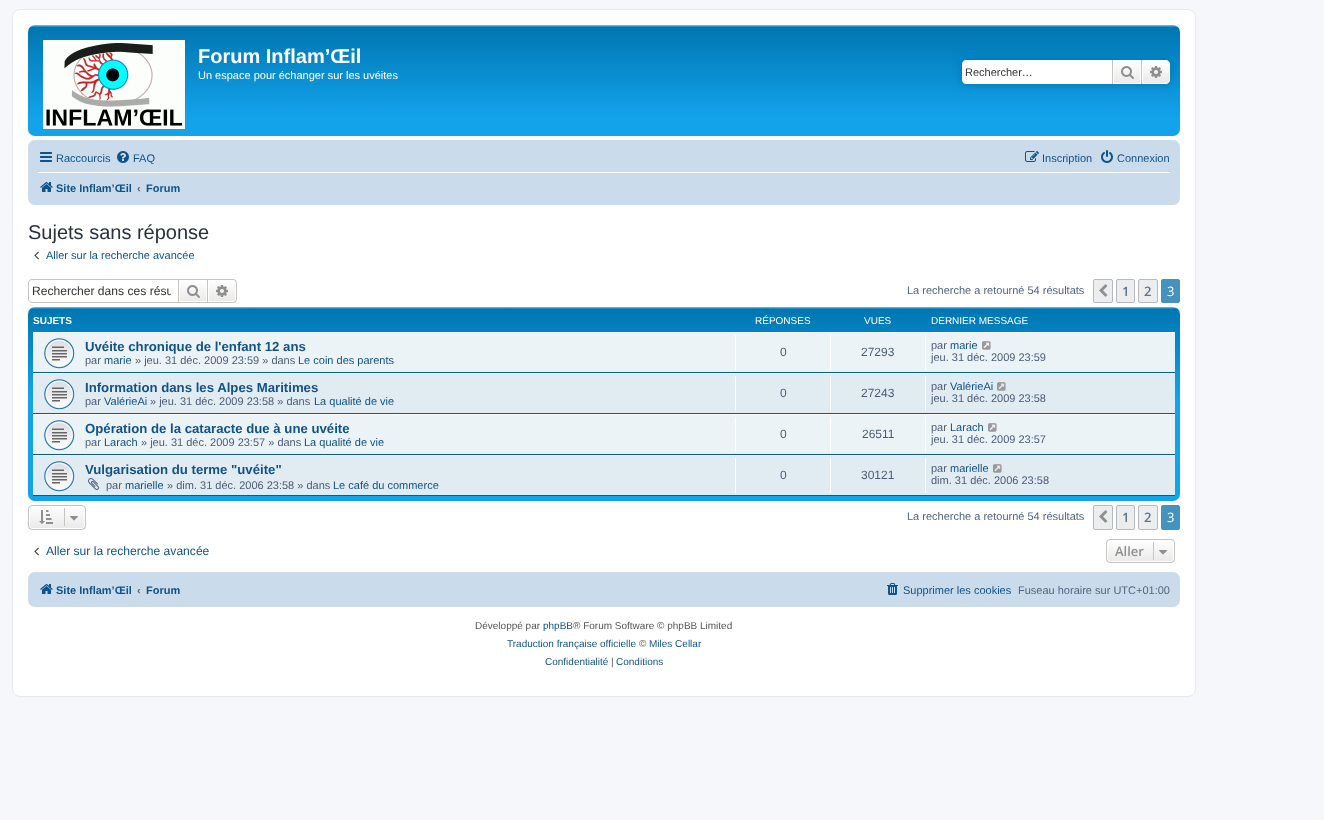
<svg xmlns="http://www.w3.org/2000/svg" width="1324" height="820">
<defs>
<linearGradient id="g1" gradientUnits="userSpaceOnUse" x1="604" y1="25" x2="604" y2="136"><stop offset="0" stop-color="#6aceff"/><stop offset="0.02" stop-color="#0076b1"/><stop offset="0.83" stop-color="#12a3eb"/><stop offset="1" stop-color="#12a3eb"/></linearGradient>
<linearGradient id="g2" gradientUnits="userSpaceOnUse" x1="1127" y1="60" x2="1127" y2="84"><stop offset="0" stop-color="#fff"/><stop offset="1" stop-color="#e9e9e9"/></linearGradient>
<linearGradient id="g3" gradientUnits="userSpaceOnUse" x1="1156" y1="60" x2="1156" y2="84"><stop offset="0" stop-color="#fff"/><stop offset="1" stop-color="#e9e9e9"/></linearGradient>
<clipPath id="clip1"><rect x="32" y="284" width="139" height="14"/></clipPath>
<linearGradient id="g4" gradientUnits="userSpaceOnUse" x1="193" y1="280" x2="193" y2="302"><stop offset="0" stop-color="#fff"/><stop offset="1" stop-color="#e9e9e9"/></linearGradient>
<linearGradient id="g5" gradientUnits="userSpaceOnUse" x1="222" y1="280" x2="222" y2="302"><stop offset="0" stop-color="#fff"/><stop offset="1" stop-color="#e9e9e9"/></linearGradient>
<linearGradient id="g6" gradientUnits="userSpaceOnUse" x1="604" y1="307" x2="604" y2="501"><stop offset="0" stop-color="#6aceff"/><stop offset="0.01" stop-color="#0076b1"/><stop offset="0.47" stop-color="#12a3eb"/><stop offset="1" stop-color="#12a3eb"/></linearGradient>
<clipPath id="clip2"><rect x="28" y="505" width="58" height="25" rx="4"/></clipPath>
<linearGradient id="g7" gradientUnits="userSpaceOnUse" x1="57" y1="506" x2="57" y2="529"><stop offset="0" stop-color="#fff"/><stop offset="1" stop-color="#e9e9e9"/></linearGradient>
<clipPath id="clip3"><rect x="1106" y="539" width="69" height="24" rx="4"/></clipPath>
<linearGradient id="g8" gradientUnits="userSpaceOnUse" x1="1141" y1="540" x2="1141" y2="562"><stop offset="0" stop-color="#fff"/><stop offset="1" stop-color="#e9e9e9"/></linearGradient>
</defs>
<rect width="100%" height="100%" fill="#f5f7fa"/>
<rect x="12.5" y="9.5" width="1183" height="687" rx="7.5" fill="#fff" stroke="#e6e9ed"/>
<rect x="28" y="25" width="1152" height="111" rx="7" fill="url(#g1)"/>
<image x="43" y="40" width="142" height="89" href="media/1.png"/>
<text x="198" y="63" style="font-family:Liberation Sans;font-size:20px;font-weight:bold;fill:#fff">Forum Inflam’Œil</text>
<text x="198" y="79" style="font-family:Liberation Sans;font-size:11px;fill:#fff">Un espace pour échanger sur les uvéites</text>
<rect x="962" y="60" width="208" height="24" rx="4" fill="#0075b0" filter="blur(5px)"/>
<path d="M966 60h146v24h-146c-2 0-4-2-4-4v-16c0-2 2-4 4-4z" fill="#fff"/>
<text x="965" y="76" style="font-family:Liberation Sans;font-size:11px;fill:#333">Rechercher…</text>
<rect x="1114" y="61" width="26" height="22" fill="url(#g2)"/>
<rect x="1113.5" y="60.5" width="27" height="23" fill="none" stroke="#fff"/>
<rect x="1141" y="60" width="1" height="24" fill="#c7c3bf"/>
<rect x="1112" y="60" width="1" height="24" fill="#c7c3bf"/>
<image x="1121" y="66" width="13" height="13" href="media/2.png"/>
<path d="M1142.5 60.5h23.5c2 0 3.5 1.5 3.5 3.5v16c0 2-1.5 3.5-3.5 3.5h-23.5z" fill="url(#g3)" stroke="#fff"/>
<image x="1150" y="66" width="12" height="12" href="media/3.png"/>
<rect x="28" y="140" width="1152" height="65" rx="7" fill="#cadceb"/>
<image x="40" y="152" width="12" height="10" href="media/4.png"/>
<text x="56" y="162" style="font-family:Liberation Sans;font-size:11px;fill:#105289">Raccourcis</text>
<image x="117" y="151" width="12" height="12" href="media/5.png"/>
<text x="133" y="162" style="font-family:Liberation Sans;font-size:11px;fill:#105289">FAQ</text>
<image x="1025" y="151" width="14" height="11" href="media/6.png"/>
<text x="1042" y="162" style="font-family:Liberation Sans;font-size:11px;fill:#105289">Inscription</text>
<image x="1101" y="150" width="12" height="13" href="media/7.png"/>
<text x="1117" y="162" style="font-family:Liberation Sans;font-size:11px;fill:#105289">Connexion</text>
<rect x="38" y="172" width="1132" height="1" fill="#fff"/>
<image x="40" y="182" width="13" height="10" href="media/8.png"/>
<text x="56" y="192" style="font-family:Liberation Sans;font-size:11px;font-weight:bold;fill:#105289">Site Inflam’Œil</text>
<text x="137" y="192" style="font-family:Liberation Sans;font-size:11px;font-weight:bold;fill:#536482">‹</text>
<text x="146" y="192" style="font-family:Liberation Sans;font-size:11px;font-weight:bold;fill:#105289">Forum</text>
<text x="28" y="239" style="font-family:Liberation Sans;font-size:20px;fill:#28313f">Sujets sans réponse</text>
<image x="34" y="251" width="5" height="9" href="media/9.png"/>
<text x="46" y="259" style="font-family:Liberation Sans;font-size:11px;fill:#105289">Aller sur la recherche avancée</text>
<path d="M32 279h146v24h-146c-2 0-4-2-4-4v-16c0-2 2-4 4-4zm0 1h146v22h-146c-2 0-3-1-3-3v-16c0-2 1-3 3-3z" fill="#c7c3bf" fill-rule="evenodd"/>
<g clip-path="url(#clip1)">
<text x="32" y="295" style="font-family:Liberation Sans;font-size:12.1px;fill:#333">Rechercher dans ces résu</text>
</g>
<rect x="180" y="283" width="26" height="18" fill="url(#g4)"/>
<rect x="178.5" y="279.5" width="29" height="23" fill="none" stroke="#c7c3bf"/>
<image x="187" y="285" width="13" height="13" href="media/10.png"/>
<path d="M208.5 280.5h24.5c1.5 0 2.5 1 2.5 2.5v16c0 1.5-1 2.5-2.5 2.5h-24.5z" fill="url(#g5)" stroke="#fff"/>
<path d="M208 279h25c2 0 4 2 4 4v16c0 2-2 4-4 4h-25zm0 1h25c1.5 0 3 1.5 3 3v16c0 1.5-1.5 3-3 3h-25z" fill="#c7c3bf" fill-rule="evenodd"/>
<image x="216" y="285" width="12" height="12" href="media/11.png"/>
<text x="907" y="294" style="font-family:Liberation Sans;font-size:11px;fill:#536482">La recherche a retourné 54 résultats</text>
<rect x="1093.5" y="279.5" width="19" height="23" rx="1.5" fill="#ecedee" stroke="#b4bac0"/>
<image x="1099" y="284" width="9" height="13" href="media/12.png"/>
<rect x="1116.5" y="279.5" width="18" height="23" rx="1.5" fill="#ecedee" stroke="#b4bac0"/>
<text x="1122" y="296" style="font-family:Open Sans;font-size:13px;font-weight:600;fill:#5c758c">1</text>
<rect x="1138.5" y="279.5" width="19" height="23" rx="1.5" fill="#ecedee" stroke="#b4bac0"/>
<text x="1144" y="296" style="font-family:Open Sans;font-size:13px;font-weight:600;fill:#5c758c">2</text>
<rect x="1161.5" y="279.5" width="18" height="23" rx="1.5" fill="#4692bf" stroke="#4692bf"/>
<text x="1167" y="296" style="font-family:Open Sans;font-size:13px;fill:#fff">3</text>
<rect x="28" y="307" width="1152" height="194" rx="7" fill="url(#g6)"/>
<text x="33" y="324" style="font-family:Liberation Sans;font-size:10px;font-weight:bold;fill:#fff">SUJETS</text>
<text x="755" y="324" style="font-family:Liberation Sans;font-size:10px;fill:#fff">RÉPONSES</text>
<text x="864" y="324" style="font-family:Liberation Sans;font-size:10px;fill:#fff">VUES</text>
<text x="931" y="324" style="font-family:Liberation Sans;font-size:10px;fill:#fff">DERNIER MESSAGE</text>
<rect x="33" y="333" width="1142" height="39" fill="#ecf3f7"/>
<rect x="33" y="332" width="1142" height="1" fill="#fff"/>
<rect x="33" y="372" width="1142" height="1" fill="#00608f"/>
<image x="44" y="338" width="31" height="31" href="media/13.png"/>
<text x="85" y="351" style="font-family:Liberation Sans;font-size:13.2px;font-weight:bold;fill:#105289">Uvéite chronique de l'enfant 12 ans</text>
<text x="85" y="364" style="font-family:Liberation Sans;font-size:11px;fill:#4c5d77">par</text>
<text x="104" y="364" style="font-family:Liberation Sans;font-size:11px;fill:#105289">marie</text>
<text x="135" y="364" style="font-family:Liberation Sans;font-size:11px;fill:#4c5d77">» jeu. 31 déc. 2009 23:59 » dans</text>
<text x="298" y="364" style="font-family:Liberation Sans;font-size:11px;fill:#105289">Le coin des parents</text>
<rect x="735" y="335" width="1" height="35" fill="#fff"/>
<text x="780" y="356" style="font-family:Liberation Sans;font-size:12px;fill:#4c5d77">0</text>
<rect x="830" y="335" width="1" height="35" fill="#fff"/>
<text x="861" y="356" style="font-family:Liberation Sans;font-size:12px;fill:#4c5d77">27293</text>
<rect x="925" y="335" width="1" height="35" fill="#fff"/>
<text x="931" y="349" style="font-family:Liberation Sans;font-size:11px;fill:#4c5d77">par</text>
<text x="950" y="349" style="font-family:Liberation Sans;font-size:11px;fill:#105289">marie</text>
<image x="982" y="341" width="9" height="9" href="media/14.png"/>
<text x="931" y="361" style="font-family:Liberation Sans;font-size:11px;fill:#4c5d77">jeu. 31 déc. 2009 23:59</text>
<rect x="33" y="374" width="1142" height="39" fill="#e1ebf2"/>
<rect x="33" y="373" width="1142" height="1" fill="#fff"/>
<rect x="33" y="413" width="1142" height="1" fill="#00608f"/>
<image x="44" y="379" width="31" height="31" href="media/15.png"/>
<text x="85" y="392" style="font-family:Liberation Sans;font-size:13.2px;font-weight:bold;fill:#105289">Information dans les Alpes Maritimes</text>
<text x="85" y="405" style="font-family:Liberation Sans;font-size:11px;fill:#4c5d77">par</text>
<text x="104" y="405" style="font-family:Liberation Sans;font-size:11px;fill:#105289">ValérieAi</text>
<text x="150" y="405" style="font-family:Liberation Sans;font-size:11px;fill:#4c5d77">» jeu. 31 déc. 2009 23:58 » dans</text>
<text x="314" y="405" style="font-family:Liberation Sans;font-size:11px;fill:#105289">La qualité de vie</text>
<rect x="735" y="376" width="1" height="35" fill="#fff"/>
<text x="780" y="397" style="font-family:Liberation Sans;font-size:12px;fill:#4c5d77">0</text>
<rect x="830" y="376" width="1" height="35" fill="#fff"/>
<text x="861" y="397" style="font-family:Liberation Sans;font-size:12px;fill:#4c5d77">27243</text>
<rect x="925" y="376" width="1" height="35" fill="#fff"/>
<text x="931" y="390" style="font-family:Liberation Sans;font-size:11px;fill:#4c5d77">par</text>
<text x="950" y="390" style="font-family:Liberation Sans;font-size:11px;fill:#105289">ValérieAi</text>
<image x="997" y="382" width="9" height="9" href="media/16.png"/>
<text x="931" y="402" style="font-family:Liberation Sans;font-size:11px;fill:#4c5d77">jeu. 31 déc. 2009 23:58</text>
<rect x="33" y="415" width="1142" height="39" fill="#ecf3f7"/>
<rect x="33" y="414" width="1142" height="1" fill="#fff"/>
<rect x="33" y="454" width="1142" height="1" fill="#00608f"/>
<image x="44" y="420" width="31" height="31" href="media/13.png"/>
<text x="85" y="433" style="font-family:Liberation Sans;font-size:13.2px;font-weight:bold;fill:#105289">Opération de la cataracte due à une uvéite</text>
<text x="85" y="446" style="font-family:Liberation Sans;font-size:11px;fill:#4c5d77">par</text>
<text x="104" y="446" style="font-family:Liberation Sans;font-size:11px;fill:#105289">Larach</text>
<text x="141" y="446" style="font-family:Liberation Sans;font-size:11px;fill:#4c5d77">» jeu. 31 déc. 2009 23:57 » dans</text>
<text x="304" y="446" style="font-family:Liberation Sans;font-size:11px;fill:#105289">La qualité de vie</text>
<rect x="735" y="417" width="1" height="35" fill="#fff"/>
<text x="780" y="438" style="font-family:Liberation Sans;font-size:12px;fill:#4c5d77">0</text>
<rect x="830" y="417" width="1" height="35" fill="#fff"/>
<text x="862" y="438" style="font-family:Liberation Sans;font-size:12px;fill:#4c5d77">26511</text>
<rect x="925" y="417" width="1" height="35" fill="#fff"/>
<text x="931" y="431" style="font-family:Liberation Sans;font-size:11px;fill:#4c5d77">par</text>
<text x="950" y="431" style="font-family:Liberation Sans;font-size:11px;fill:#105289">Larach</text>
<image x="988" y="423" width="9" height="9" href="media/14.png"/>
<text x="931" y="443" style="font-family:Liberation Sans;font-size:11px;fill:#4c5d77">jeu. 31 déc. 2009 23:57</text>
<rect x="33" y="456" width="1142" height="39" fill="#e1ebf2"/>
<rect x="33" y="455" width="1142" height="1" fill="#fff"/>
<rect x="33" y="495" width="1142" height="1" fill="#00608f"/>
<image x="44" y="461" width="31" height="31" href="media/15.png"/>
<text x="85" y="474" style="font-family:Liberation Sans;font-size:13.2px;font-weight:bold;fill:#105289">Vulgarisation du terme "uvéite"</text>
<image x="88" y="478" width="11" height="12" href="media/17.png"/>
<text x="106" y="489" style="font-family:Liberation Sans;font-size:11px;fill:#4c5d77">par</text>
<text x="125" y="489" style="font-family:Liberation Sans;font-size:11px;fill:#105289">marielle</text>
<text x="167" y="489" style="font-family:Liberation Sans;font-size:11px;fill:#4c5d77">» dim. 31 déc. 2006 23:58 » dans</text>
<text x="333" y="489" style="font-family:Liberation Sans;font-size:11px;fill:#105289">Le café du commerce</text>
<rect x="735" y="458" width="1" height="35" fill="#fff"/>
<text x="780" y="479" style="font-family:Liberation Sans;font-size:12px;fill:#4c5d77">0</text>
<rect x="830" y="458" width="1" height="35" fill="#fff"/>
<text x="861" y="479" style="font-family:Liberation Sans;font-size:12px;fill:#4c5d77">30121</text>
<rect x="925" y="458" width="1" height="35" fill="#fff"/>
<text x="931" y="472" style="font-family:Liberation Sans;font-size:11px;fill:#4c5d77">par</text>
<text x="950" y="472" style="font-family:Liberation Sans;font-size:11px;fill:#105289">marielle</text>
<image x="993" y="464" width="9" height="9" href="media/16.png"/>
<text x="931" y="484" style="font-family:Liberation Sans;font-size:11px;fill:#4c5d77">dim. 31 déc. 2006 23:58</text>
<g clip-path="url(#clip2)">
<rect x="28" y="506" width="58" height="23" fill="url(#g7)"/>
</g>
<rect x="29.5" y="506.5" width="55" height="22" rx="2.5" fill="none" stroke="#fff"/>
<rect x="28.5" y="505.5" width="57" height="24" rx="3.5" fill="none" stroke="#c7c3bf"/>
<image x="39" y="510" width="14" height="14" href="media/18.png"/>
<rect x="64" y="508" width="1" height="18" fill="#c7c3bf"/>
<image x="70" y="516" width="8" height="5" href="media/19.png"/>
<text x="907" y="520" style="font-family:Liberation Sans;font-size:11px;fill:#536482">La recherche a retourné 54 résultats</text>
<rect x="1093.5" y="505.5" width="19" height="24" rx="1.5" fill="#ecedee" stroke="#b4bac0"/>
<image x="1099" y="510" width="9" height="13" href="media/12.png"/>
<rect x="1116.5" y="505.5" width="18" height="24" rx="1.5" fill="#ecedee" stroke="#b4bac0"/>
<text x="1122" y="522" style="font-family:Open Sans;font-size:13px;font-weight:600;fill:#5c758c">1</text>
<rect x="1138.5" y="505.5" width="19" height="24" rx="1.5" fill="#ecedee" stroke="#b4bac0"/>
<text x="1144" y="522" style="font-family:Open Sans;font-size:13px;font-weight:600;fill:#5c758c">2</text>
<rect x="1161.5" y="505.5" width="18" height="24" rx="1.5" fill="#4692bf" stroke="#4692bf"/>
<text x="1167" y="522" style="font-family:Open Sans;font-size:13px;fill:#fff">3</text>
<image x="34" y="547" width="5" height="9" href="media/9.png"/>
<text x="46" y="555" style="font-family:Liberation Sans;font-size:12.1px;fill:#105289">Aller sur la recherche avancée</text>
<g clip-path="url(#clip3)">
<rect x="1106" y="540" width="69" height="22" fill="url(#g8)"/>
</g>
<rect x="1107.5" y="540.5" width="66" height="21" rx="2.5" fill="none" stroke="#fff"/>
<rect x="1106.5" y="539.5" width="68" height="23" rx="3.5" fill="none" stroke="#c7c3bf"/>
<text x="1115" y="556" style="font-family:Open Sans;font-size:13px;font-weight:600;fill:#8f8f8f">Aller</text>
<rect x="1153" y="542" width="1" height="18" fill="#c7c3bf"/>
<image x="1159" y="550" width="8" height="5" href="media/19.png"/>
<rect x="28" y="572" width="1152" height="35" rx="7" fill="#cadceb"/>
<image x="40" y="584" width="13" height="10" href="media/8.png"/>
<text x="56" y="594" style="font-family:Liberation Sans;font-size:11px;font-weight:bold;fill:#105289">Site Inflam’Œil</text>
<text x="137" y="594" style="font-family:Liberation Sans;font-size:11px;font-weight:bold;fill:#536482">‹</text>
<text x="146" y="594" style="font-family:Liberation Sans;font-size:11px;font-weight:bold;fill:#105289">Forum</text>
<image x="887" y="583" width="11" height="12" href="media/20.png"/>
<text x="903" y="594" style="font-family:Liberation Sans;font-size:11px;fill:#105289">Supprimer les cookies</text>
<text x="1018" y="594" style="font-family:Liberation Sans;font-size:11px;fill:#536482">Fuseau horaire sur UTC+01:00</text>
<text x="475" y="629" style="font-family:Liberation Sans;font-size:10px;fill:#555">Développé par</text>
<text x="543" y="629" style="font-family:Liberation Sans;font-size:10px;fill:#105289">phpBB</text>
<text x="573" y="629" style="font-family:Liberation Sans;font-size:10px;fill:#555">® Forum Software © phpBB Limited</text>
<text x="507" y="647" style="font-family:Liberation Sans;font-size:10px;fill:#105289">Traduction française officielle</text>
<text x="639" y="647" style="font-family:Liberation Sans;font-size:10px;fill:#555">©</text>
<text x="649" y="647" style="font-family:Liberation Sans;font-size:10px;fill:#105289">Miles Cellar</text>
<text x="545" y="665" style="font-family:Liberation Sans;font-size:10px;fill:#105289">Confidentialité</text>
<text x="611" y="665" style="font-family:Liberation Sans;font-size:10px;fill:#555">|</text>
<text x="616" y="665" style="font-family:Liberation Sans;font-size:10px;fill:#105289">Conditions</text>
</svg>
